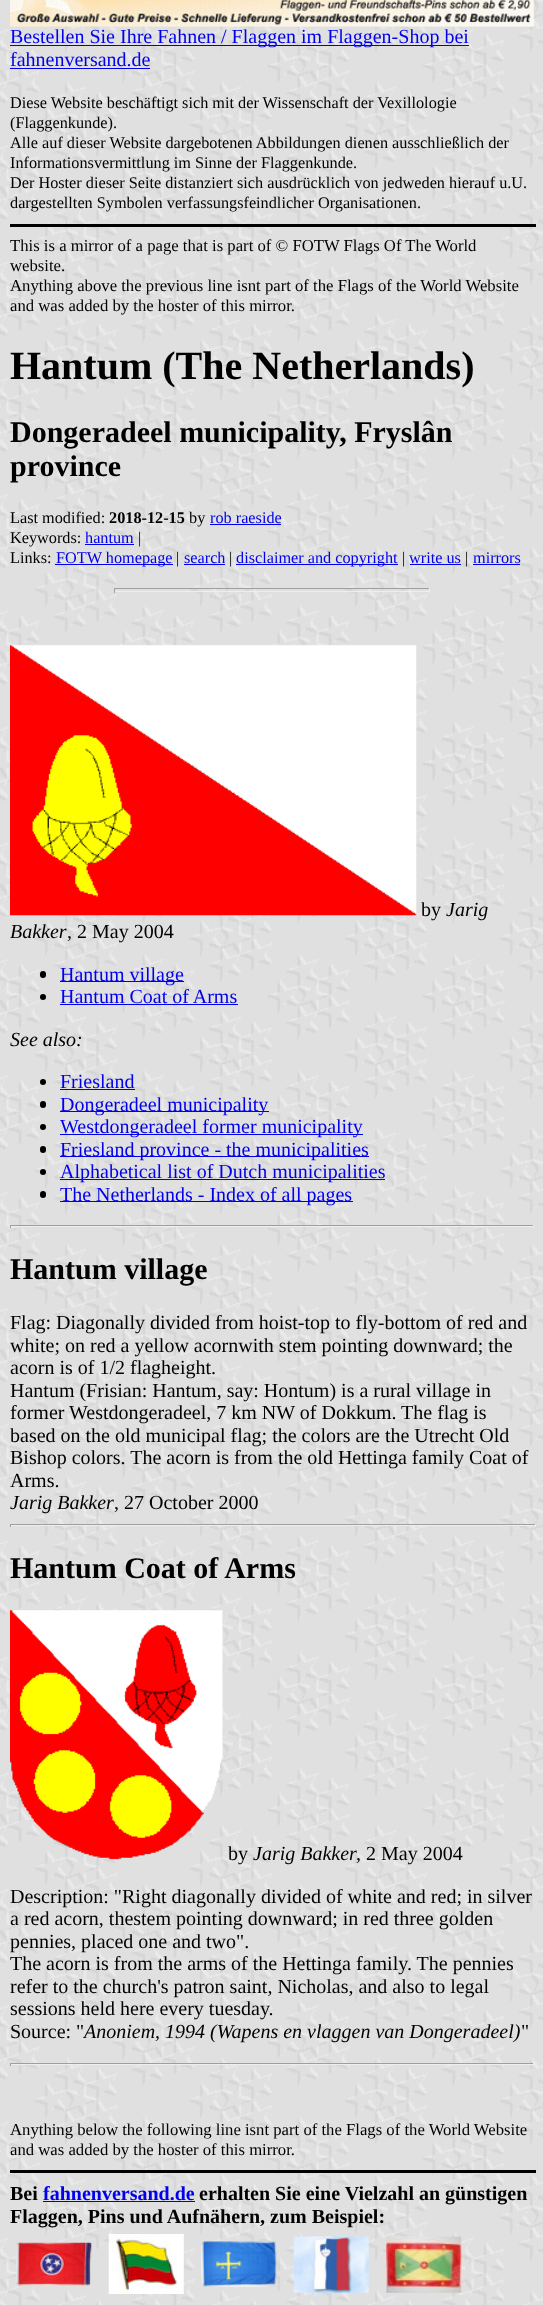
<svg xmlns="http://www.w3.org/2000/svg" width="543" height="2305">
<rect width="100%" height="100%" fill="#fff"/>
<image x="0" y="0" width="543" height="2305" href="media/1.png"/>
<image x="10" y="0" width="524" height="27" href="media/2.png"/>
<rect x="10" y="45" width="459" height="1" fill="#00e"/>
<text x="10" y="43" style="font-family:Liberation Serif;font-size:20px;fill:#00e">Bestellen Sie Ihre Fahnen / Flaggen im Flaggen-Shop bei</text>
<text x="10" y="66" style="font-family:Liberation Serif;font-size:20px;fill:#00e">fahnenversand.de</text>
<rect x="10" y="68" width="140" height="1" fill="#00e"/>
<text x="10" y="108" style="font-family:Liberation Serif;font-size:16.25px;fill:#000">Diese Website beschäftigt sich mit der Wissenschaft der Vexillologie</text>
<text x="10" y="128" style="font-family:Liberation Serif;font-size:16.25px;fill:#000">(Flaggenkunde).</text>
<text x="10" y="148" style="font-family:Liberation Serif;font-size:16.25px;fill:#000">Alle auf dieser Website dargebotenen Abbildungen dienen ausschließlich der</text>
<text x="10" y="168" style="font-family:Liberation Serif;font-size:16.25px;fill:#000">Informationsvermittlung im Sinne der Flaggenkunde.</text>
<text x="10" y="188" style="font-family:Liberation Serif;font-size:16.25px;fill:#000">Der Hoster dieser Seite distanziert sich ausdrücklich von jedweden hierauf u.U.</text>
<text x="10" y="208" style="font-family:Liberation Serif;font-size:16.25px;fill:#000">dargestellten Symbolen verfassungsfeindlicher Organisationen.</text>
<rect x="10" y="224" width="526" height="3" fill="#000"/>
<text x="10" y="251" style="font-family:Liberation Serif;font-size:16.7px;fill:#000">This is a mirror of a page that is part of © FOTW Flags Of The World</text>
<text x="10" y="271" style="font-family:Liberation Serif;font-size:16.7px;fill:#000">website.</text>
<text x="10" y="291" style="font-family:Liberation Serif;font-size:16.7px;fill:#000">Anything above the previous line isnt part of the Flags of the World Website</text>
<text x="10" y="311" style="font-family:Liberation Serif;font-size:16.7px;fill:#000">and was added by the hoster of this mirror.</text>
<text x="10" y="379" style="font-family:Liberation Serif;font-size:40px;font-weight:bold;fill:#000">Hantum (The Netherlands)</text>
<text x="10" y="442" style="font-family:Liberation Serif;font-size:30px;font-weight:bold;fill:#000">Dongeradeel municipality, Fryslân</text>
<text x="10" y="476" style="font-family:Liberation Serif;font-size:30px;font-weight:bold;fill:#000">province</text>
<text x="10" y="523" style="font-family:Liberation Serif;font-size:16.25px;fill:#000">Last modified:</text>
<text x="109" y="523" style="font-family:Liberation Serif;font-size:16.25px;font-weight:bold;fill:#000">2018-12-15</text>
<text x="189" y="523" style="font-family:Liberation Serif;font-size:16.25px;fill:#000">by</text>
<text x="210" y="523" style="font-family:Liberation Serif;font-size:16.25px;fill:#00e">rob raeside</text>
<rect x="210" y="524" width="71" height="1" fill="#00e"/>
<text x="10" y="543" style="font-family:Liberation Serif;font-size:16.25px;fill:#000">Keywords:</text>
<text x="85" y="543" style="font-family:Liberation Serif;font-size:16.25px;fill:#00e">hantum</text>
<rect x="85" y="544" width="49" height="1" fill="#00e"/>
<text x="138" y="543" style="font-family:Liberation Serif;font-size:16.25px;fill:#000">|</text>
<text x="10" y="563" style="font-family:Liberation Serif;font-size:16.25px;fill:#000">Links:</text>
<rect x="55" y="564" width="118" height="1" fill="#00e"/>
<text x="56" y="563" style="font-family:Liberation Serif;font-size:16.25px;fill:#00e">FOTW homepage</text>
<text x="176" y="563" style="font-family:Liberation Serif;font-size:16.25px;fill:#000">|</text>
<text x="184" y="563" style="font-family:Liberation Serif;font-size:16.25px;fill:#00e">search</text>
<rect x="184" y="564" width="41" height="1" fill="#00e"/>
<text x="229" y="563" style="font-family:Liberation Serif;font-size:16.25px;fill:#000">|</text>
<rect x="236" y="564" width="162" height="1" fill="#00e"/>
<text x="236" y="563" style="font-family:Liberation Serif;font-size:16.25px;fill:#00e">disclaimer and copyright</text>
<text x="402" y="563" style="font-family:Liberation Serif;font-size:16.25px;fill:#000">|</text>
<text x="409" y="563" style="font-family:Liberation Serif;font-size:16.25px;fill:#00e">write us</text>
<rect x="410" y="564" width="51" height="1" fill="#00e"/>
<text x="465" y="563" style="font-family:Liberation Serif;font-size:16.25px;fill:#000">|</text>
<text x="473" y="563" style="font-family:Liberation Serif;font-size:16.25px;fill:#00e">mirrors</text>
<rect x="473" y="564" width="47" height="1" fill="#00e"/>
<rect x="114" y="588" width="316" height="1" fill="#9f9f9f"/>
<rect x="429" y="588" width="1" height="5" fill="#eee"/>
<rect x="114" y="591" width="316" height="1" fill="#eee"/>
<rect x="114" y="588" width="1" height="5" fill="#9f9f9f"/>
<image x="10" y="645" width="407" height="271" href="media/3.png"/>
<text x="421" y="916" style="font-family:Liberation Serif;font-size:20px;fill:#000">by</text>
<text x="446" y="916" style="font-family:Liberation Serif;font-size:20px;font-style:italic;fill:#000">Jarig</text>
<text x="10" y="938" style="font-family:Liberation Serif;font-size:20px;font-style:italic;fill:#000">Bakker</text>
<text x="67" y="938" style="font-family:Liberation Serif;font-size:20px;fill:#000">, 2 May 2004</text>
<rect x="40" y="971" width="6" height="7" rx="3" fill="#000"/>
<rect x="60" y="981" width="124" height="1" fill="#00e"/>
<text x="60" y="981" style="font-family:Liberation Serif;font-size:20px;fill:#00e">Hantum village</text>
<circle cx="43" cy="997" r="3" fill="#000"/>
<text x="60" y="1003" style="font-family:Liberation Serif;font-size:20px;fill:#00e">Hantum Coat of Arms</text>
<rect x="60" y="1004" width="178" height="1" fill="#00e"/>
<text x="10" y="1046" style="font-family:Liberation Serif;font-size:20px;font-style:italic;fill:#000">See also:</text>
<circle cx="43" cy="1082" r="3" fill="#000"/>
<text x="60" y="1088" style="font-family:Liberation Serif;font-size:20px;fill:#00e">Friesland</text>
<rect x="60" y="1089" width="75" height="1" fill="#00e"/>
<rect x="40" y="1101" width="6" height="7" rx="3" fill="#000"/>
<rect x="60" y="1111" width="209" height="1" fill="#00e"/>
<text x="60" y="1111" style="font-family:Liberation Serif;font-size:20px;fill:#00e">Dongeradeel municipality</text>
<circle cx="43" cy="1127" r="3" fill="#000"/>
<rect x="60" y="1134" width="303" height="1" fill="#00e"/>
<text x="60" y="1133" style="font-family:Liberation Serif;font-size:20px;fill:#00e">Westdongeradeel former municipality</text>
<rect x="40" y="1146" width="6" height="7" rx="3" fill="#000"/>
<rect x="60" y="1156" width="309" height="1" fill="#00e"/>
<text x="60" y="1156" style="font-family:Liberation Serif;font-size:20px;fill:#00e">Friesland province - the municipalities</text>
<circle cx="43" cy="1172" r="3" fill="#000"/>
<rect x="60" y="1179" width="325" height="1" fill="#00e"/>
<text x="60" y="1178" style="font-family:Liberation Serif;font-size:20px;fill:#00e">Alphabetical list of Dutch municipalities</text>
<rect x="40" y="1191" width="6" height="7" rx="3" fill="#000"/>
<rect x="60" y="1201" width="293" height="1" fill="#00e"/>
<text x="60" y="1201" style="font-family:Liberation Serif;font-size:20px;fill:#00e">The Netherlands - Index of all pages</text>
<rect x="10" y="1225" width="524" height="1" fill="#9f9f9f"/>
<rect x="533" y="1225" width="1" height="3" fill="#eee"/>
<rect x="10" y="1226" width="524" height="1" fill="#eee"/>
<rect x="10" y="1225" width="1" height="3" fill="#9f9f9f"/>
<text x="10" y="1279" style="font-family:Liberation Serif;font-size:30px;font-weight:bold;fill:#000">Hantum village</text>
<text x="10" y="1329" style="font-family:Liberation Serif;font-size:20px;fill:#000">Flag: Diagonally divided from hoist-top to fly-bottom of red and</text>
<text x="10" y="1352" style="font-family:Liberation Serif;font-size:20px;fill:#000">white; on red a yellow acornwith stem pointing downward; the</text>
<text x="10" y="1374" style="font-family:Liberation Serif;font-size:20px;fill:#000">acorn is of 1/2 flagheight.</text>
<text x="10" y="1397" style="font-family:Liberation Serif;font-size:20px;fill:#000">Hantum (Frisian: Hantum, say: Hontum) is a rural village in</text>
<text x="10" y="1419" style="font-family:Liberation Serif;font-size:20px;fill:#000">former Westdongeradeel, 7 km NW of Dokkum. The flag is</text>
<text x="10" y="1442" style="font-family:Liberation Serif;font-size:20px;fill:#000">based on the old municipal flag; the colors are the Utrecht Old</text>
<text x="10" y="1464" style="font-family:Liberation Serif;font-size:20px;fill:#000">Bishop colors. The acorn is from the old Hettinga family Coat of</text>
<text x="10" y="1487" style="font-family:Liberation Serif;font-size:20px;fill:#000">Arms.</text>
<text x="10" y="1509" style="font-family:Liberation Serif;font-size:20px;font-style:italic;fill:#000">Jarig Bakker</text>
<text x="114" y="1509" style="font-family:Liberation Serif;font-size:20px;fill:#000">, 27 October 2000</text>
<rect x="10" y="1524" width="526" height="1" fill="#9f9f9f"/>
<rect x="535" y="1524" width="1" height="3" fill="#eee"/>
<rect x="10" y="1525" width="526" height="1" fill="#eee"/>
<rect x="10" y="1524" width="1" height="3" fill="#9f9f9f"/>
<text x="10" y="1578" style="font-family:Liberation Serif;font-size:30px;font-weight:bold;fill:#000">Hantum Coat of Arms</text>
<image x="10" y="1610" width="213" height="250" href="media/4.png"/>
<text x="228" y="1860" style="font-family:Liberation Serif;font-size:20px;fill:#000">by</text>
<text x="253" y="1860" style="font-family:Liberation Serif;font-size:20px;font-style:italic;fill:#000">Jarig Bakker</text>
<text x="356" y="1860" style="font-family:Liberation Serif;font-size:20px;fill:#000">, 2 May 2004</text>
<text x="10" y="1903" style="font-family:Liberation Serif;font-size:20px;fill:#000">Description: "Right diagonally divided of white and red; in silver</text>
<text x="10" y="1925" style="font-family:Liberation Serif;font-size:20px;fill:#000">a red acorn, thestem pointing downward; in red three golden</text>
<text x="10" y="1948" style="font-family:Liberation Serif;font-size:20px;fill:#000">pennies, placed one and two".</text>
<text x="10" y="1970" style="font-family:Liberation Serif;font-size:20px;fill:#000">The acorn is from the arms of the Hettinga family. The pennies</text>
<text x="10" y="1993" style="font-family:Liberation Serif;font-size:20px;fill:#000">refer to the church's patron saint, Nicholas, and also to legal</text>
<text x="10" y="2015" style="font-family:Liberation Serif;font-size:20px;fill:#000">sessions held here every tuesday.</text>
<text x="10" y="2038" style="font-family:Liberation Serif;font-size:20px;fill:#000">Source: "</text>
<text x="84" y="2038" style="font-family:Liberation Serif;font-size:20px;font-style:italic;fill:#000">Anoniem, 1994 (Wapens en vlaggen van Dongeradeel)</text>
<text x="521" y="2038" style="font-family:Liberation Serif;font-size:20px;fill:#000">"</text>
<rect x="10" y="2063" width="524" height="1" fill="#9f9f9f"/>
<rect x="533" y="2063" width="1" height="3" fill="#eee"/>
<rect x="10" y="2064" width="524" height="1" fill="#eee"/>
<rect x="10" y="2063" width="1" height="3" fill="#9f9f9f"/>
<text x="10" y="2135" style="font-family:Liberation Serif;font-size:16.7px;fill:#000">Anything below the following line isnt part of the Flags of the World Website</text>
<text x="10" y="2155" style="font-family:Liberation Serif;font-size:16.7px;fill:#000">and was added by the hoster of this mirror.</text>
<rect x="10" y="2170" width="526" height="3" fill="#000"/>
<text x="10" y="2200" style="font-family:Liberation Serif;font-size:20px;font-weight:bold;fill:#000">Bei</text>
<text x="43" y="2200" style="font-family:Liberation Serif;font-size:20px;font-weight:bold;fill:#00e">fahnenversand.de</text>
<rect x="43" y="2201" width="152" height="1" fill="#00e"/>
<text x="199" y="2200" style="font-family:Liberation Serif;font-size:20px;font-weight:bold;fill:#000">erhalten Sie eine Vielzahl an günstigen</text>
<text x="10" y="2223" style="font-family:Liberation Serif;font-size:20px;font-weight:bold;fill:#000">Flaggen, Pins und Aufnähern, zum Beispiel:</text>
<image x="16" y="2242" width="76" height="44" href="media/5.png"/>
<image x="108" y="2234" width="76" height="60" href="media/6.png"/>
<image x="201" y="2241" width="76" height="46" href="media/7.png"/>
<image x="293" y="2236" width="76" height="57" href="media/8.png"/>
<image x="386" y="2236" width="76" height="57" href="media/9.png"/>
</svg>
